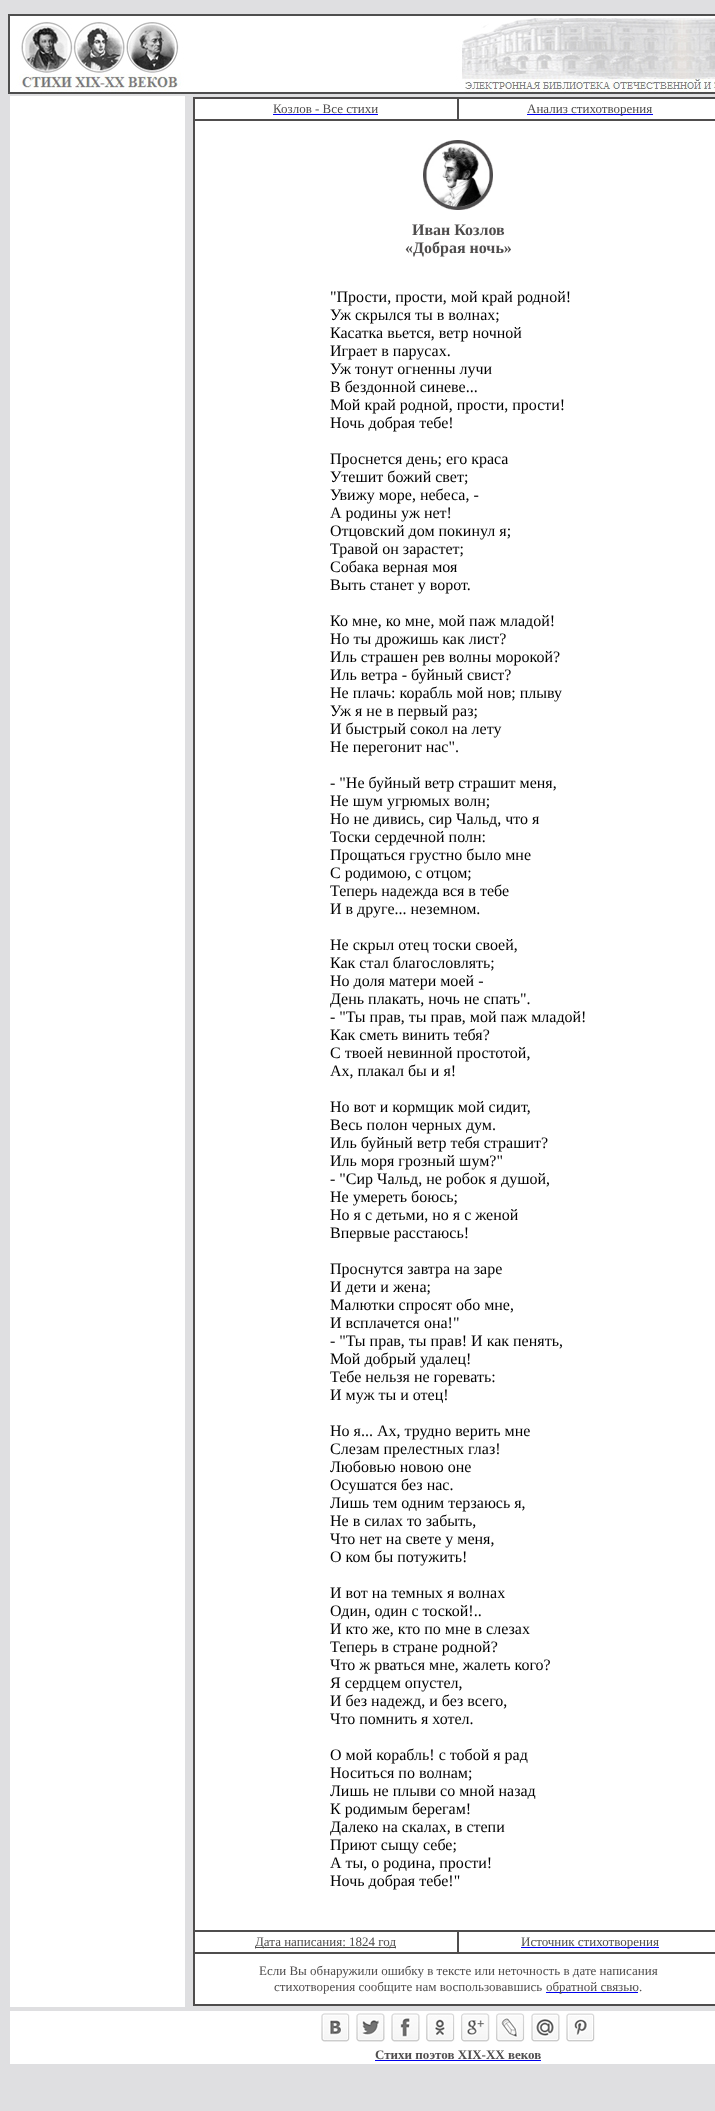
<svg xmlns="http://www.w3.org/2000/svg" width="715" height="2111">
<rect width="100%" height="100%" fill="#dfdfe1"/>
<image x="8" y="14" width="707" height="80" href="media/1.png"/>
<rect x="10" y="96" width="175" height="1911" fill="#fff"/>
<rect x="193" y="97" width="522" height="1909" fill="#4f4d4d"/>
<rect x="195" y="99" width="262" height="20" fill="#fff"/>
<text x="273" y="113" style="font-family:Liberation Serif;font-size:13px;fill:#4f4d4d">Козлов - Все стихи</text>
<rect x="273" y="114" width="105" height="1" fill="#00e"/>
<rect x="459" y="99" width="256" height="20" fill="#fff"/>
<rect x="527" y="114" width="126" height="1" fill="#00e"/>
<text x="527" y="113" style="font-family:Liberation Serif;font-size:13px;fill:#4f4d4d">Анализ стихотворения</text>
<rect x="195" y="121" width="520" height="1809" fill="#fff"/>
<image x="423" y="140" width="70" height="70" href="media/2.png"/>
<text x="412" y="235" style="font-family:Liberation Serif;font-size:16px;font-weight:bold;fill:#4f4d4d">Иван Козлов</text>
<text x="405" y="253" style="font-family:Liberation Serif;font-size:16px;font-weight:bold;fill:#4f4d4d">«Добрая ночь»</text>
<text x="330" y="302" style="font-family:Liberation Serif;font-size:16px;fill:#000">"Прости, прости, мой край родной!</text>
<text x="330" y="320" style="font-family:Liberation Serif;font-size:16px;fill:#000">Уж скрылся ты в волнах;</text>
<text x="330" y="338" style="font-family:Liberation Serif;font-size:16px;fill:#000">Касатка вьется, ветр ночной</text>
<text x="330" y="356" style="font-family:Liberation Serif;font-size:16px;fill:#000">Играет в парусах.</text>
<text x="330" y="374" style="font-family:Liberation Serif;font-size:16px;fill:#000">Уж тонут огненны лучи</text>
<text x="330" y="392" style="font-family:Liberation Serif;font-size:16px;fill:#000">В бездонной синеве...</text>
<text x="330" y="410" style="font-family:Liberation Serif;font-size:16px;fill:#000">Мой край родной, прости, прости!</text>
<text x="330" y="428" style="font-family:Liberation Serif;font-size:16px;fill:#000">Ночь добрая тебе!</text>
<text x="330" y="464" style="font-family:Liberation Serif;font-size:16px;fill:#000">Проснется день; его краса</text>
<text x="330" y="482" style="font-family:Liberation Serif;font-size:16px;fill:#000">Утешит божий свет;</text>
<text x="330" y="500" style="font-family:Liberation Serif;font-size:16px;fill:#000">Увижу море, небеса, -</text>
<text x="330" y="518" style="font-family:Liberation Serif;font-size:16px;fill:#000">А родины уж нет!</text>
<text x="330" y="536" style="font-family:Liberation Serif;font-size:16px;fill:#000">Отцовский дом покинул я;</text>
<text x="330" y="554" style="font-family:Liberation Serif;font-size:16px;fill:#000">Травой он зарастет;</text>
<text x="330" y="572" style="font-family:Liberation Serif;font-size:16px;fill:#000">Собака верная моя</text>
<text x="330" y="590" style="font-family:Liberation Serif;font-size:16px;fill:#000">Выть станет у ворот.</text>
<text x="330" y="626" style="font-family:Liberation Serif;font-size:16px;fill:#000">Ко мне, ко мне, мой паж младой!</text>
<text x="330" y="644" style="font-family:Liberation Serif;font-size:16px;fill:#000">Но ты дрожишь как лист?</text>
<text x="330" y="662" style="font-family:Liberation Serif;font-size:16px;fill:#000">Иль страшен рев волны морокой?</text>
<text x="330" y="680" style="font-family:Liberation Serif;font-size:16px;fill:#000">Иль ветра - буйный свист?</text>
<text x="330" y="698" style="font-family:Liberation Serif;font-size:16px;fill:#000">Не плачь: корабль мой нов; плыву</text>
<text x="330" y="716" style="font-family:Liberation Serif;font-size:16px;fill:#000">Уж я не в первый раз;</text>
<text x="330" y="734" style="font-family:Liberation Serif;font-size:16px;fill:#000">И быстрый сокол на лету</text>
<text x="330" y="752" style="font-family:Liberation Serif;font-size:16px;fill:#000">Не перегонит нас".</text>
<text x="330" y="788" style="font-family:Liberation Serif;font-size:16px;fill:#000">- "Не буйный ветр страшит меня,</text>
<text x="330" y="806" style="font-family:Liberation Serif;font-size:16px;fill:#000">Не шум угрюмых волн;</text>
<text x="330" y="824" style="font-family:Liberation Serif;font-size:16px;fill:#000">Но не дивись, сир Чальд, что я</text>
<text x="330" y="842" style="font-family:Liberation Serif;font-size:16px;fill:#000">Тоски сердечной полн:</text>
<text x="330" y="860" style="font-family:Liberation Serif;font-size:16px;fill:#000">Прощаться грустно было мне</text>
<text x="330" y="878" style="font-family:Liberation Serif;font-size:16px;fill:#000">С родимою, с отцом;</text>
<text x="330" y="896" style="font-family:Liberation Serif;font-size:16px;fill:#000">Теперь надежда вся в тебе</text>
<text x="330" y="914" style="font-family:Liberation Serif;font-size:16px;fill:#000">И в друге... неземном.</text>
<text x="330" y="950" style="font-family:Liberation Serif;font-size:16px;fill:#000">Не скрыл отец тоски своей,</text>
<text x="330" y="968" style="font-family:Liberation Serif;font-size:16px;fill:#000">Как стал благословлять;</text>
<text x="330" y="986" style="font-family:Liberation Serif;font-size:16px;fill:#000">Но доля матери моей -</text>
<text x="330" y="1004" style="font-family:Liberation Serif;font-size:16px;fill:#000">День плакать, ночь не спать".</text>
<text x="330" y="1022" style="font-family:Liberation Serif;font-size:16px;fill:#000">- "Ты прав, ты прав, мой паж младой!</text>
<text x="330" y="1040" style="font-family:Liberation Serif;font-size:16px;fill:#000">Как сметь винить тебя?</text>
<text x="330" y="1058" style="font-family:Liberation Serif;font-size:16px;fill:#000">С твоей невинной простотой,</text>
<text x="330" y="1076" style="font-family:Liberation Serif;font-size:16px;fill:#000">Ах, плакал бы и я!</text>
<text x="330" y="1112" style="font-family:Liberation Serif;font-size:16px;fill:#000">Но вот и кормщик мой сидит,</text>
<text x="330" y="1130" style="font-family:Liberation Serif;font-size:16px;fill:#000">Весь полон черных дум.</text>
<text x="330" y="1148" style="font-family:Liberation Serif;font-size:16px;fill:#000">Иль буйный ветр тебя страшит?</text>
<text x="330" y="1166" style="font-family:Liberation Serif;font-size:16px;fill:#000">Иль моря грозный шум?"</text>
<text x="330" y="1184" style="font-family:Liberation Serif;font-size:16px;fill:#000">- "Сир Чальд, не робок я душой,</text>
<text x="330" y="1202" style="font-family:Liberation Serif;font-size:16px;fill:#000">Не умереть боюсь;</text>
<text x="330" y="1220" style="font-family:Liberation Serif;font-size:16px;fill:#000">Но я с детьми, но я с женой</text>
<text x="330" y="1238" style="font-family:Liberation Serif;font-size:16px;fill:#000">Впервые расстаюсь!</text>
<text x="330" y="1274" style="font-family:Liberation Serif;font-size:16px;fill:#000">Проснутся завтра на заре</text>
<text x="330" y="1292" style="font-family:Liberation Serif;font-size:16px;fill:#000">И дети и жена;</text>
<text x="330" y="1310" style="font-family:Liberation Serif;font-size:16px;fill:#000">Малютки спросят обо мне,</text>
<text x="330" y="1328" style="font-family:Liberation Serif;font-size:16px;fill:#000">И всплачется она!"</text>
<text x="330" y="1346" style="font-family:Liberation Serif;font-size:16px;fill:#000">- "Ты прав, ты прав! И как пенять,</text>
<text x="330" y="1364" style="font-family:Liberation Serif;font-size:16px;fill:#000">Мой добрый удалец!</text>
<text x="330" y="1382" style="font-family:Liberation Serif;font-size:16px;fill:#000">Тебе нельзя не горевать:</text>
<text x="330" y="1400" style="font-family:Liberation Serif;font-size:16px;fill:#000">И муж ты и отец!</text>
<text x="330" y="1436" style="font-family:Liberation Serif;font-size:16px;fill:#000">Но я... Ах, трудно верить мне</text>
<text x="330" y="1454" style="font-family:Liberation Serif;font-size:16px;fill:#000">Слезам прелестных глаз!</text>
<text x="330" y="1472" style="font-family:Liberation Serif;font-size:16px;fill:#000">Любовью новою оне</text>
<text x="330" y="1490" style="font-family:Liberation Serif;font-size:16px;fill:#000">Осушатся без нас.</text>
<text x="330" y="1508" style="font-family:Liberation Serif;font-size:16px;fill:#000">Лишь тем одним терзаюсь я,</text>
<text x="330" y="1526" style="font-family:Liberation Serif;font-size:16px;fill:#000">Не в силах то забыть,</text>
<text x="330" y="1544" style="font-family:Liberation Serif;font-size:16px;fill:#000">Что нет на свете у меня,</text>
<text x="330" y="1562" style="font-family:Liberation Serif;font-size:16px;fill:#000">О ком бы потужить!</text>
<text x="330" y="1598" style="font-family:Liberation Serif;font-size:16px;fill:#000">И вот на темных я волнах</text>
<text x="330" y="1616" style="font-family:Liberation Serif;font-size:16px;fill:#000">Один, один с тоской!..</text>
<text x="330" y="1634" style="font-family:Liberation Serif;font-size:16px;fill:#000">И кто же, кто по мне в слезах</text>
<text x="330" y="1652" style="font-family:Liberation Serif;font-size:16px;fill:#000">Теперь в стране родной?</text>
<text x="330" y="1670" style="font-family:Liberation Serif;font-size:16px;fill:#000">Что ж рваться мне, жалеть кого?</text>
<text x="330" y="1688" style="font-family:Liberation Serif;font-size:16px;fill:#000">Я сердцем опустел,</text>
<text x="330" y="1706" style="font-family:Liberation Serif;font-size:16px;fill:#000">И без надежд, и без всего,</text>
<text x="330" y="1724" style="font-family:Liberation Serif;font-size:16px;fill:#000">Что помнить я хотел.</text>
<text x="330" y="1760" style="font-family:Liberation Serif;font-size:16px;fill:#000">О мой корабль! с тобой я рад</text>
<text x="330" y="1778" style="font-family:Liberation Serif;font-size:16px;fill:#000">Носиться по волнам;</text>
<text x="330" y="1796" style="font-family:Liberation Serif;font-size:16px;fill:#000">Лишь не плыви со мной назад</text>
<text x="330" y="1814" style="font-family:Liberation Serif;font-size:16px;fill:#000">К родимым берегам!</text>
<text x="330" y="1832" style="font-family:Liberation Serif;font-size:16px;fill:#000">Далеко на скалах, в степи</text>
<text x="330" y="1850" style="font-family:Liberation Serif;font-size:16px;fill:#000">Приют сыщу себе;</text>
<text x="330" y="1868" style="font-family:Liberation Serif;font-size:16px;fill:#000">А ты, о родина, прости!</text>
<text x="330" y="1886" style="font-family:Liberation Serif;font-size:16px;fill:#000">Ночь добрая тебе!"</text>
<rect x="195" y="1932" width="262" height="20" fill="#fff"/>
<rect x="255" y="1947" width="141" height="1" fill="#4f4d4d"/>
<text x="255" y="1946" style="font-family:Liberation Serif;font-size:13px;fill:#4f4d4d">Дата написания: 1824 год</text>
<rect x="459" y="1932" width="256" height="20" fill="#fff"/>
<rect x="521" y="1947" width="138" height="1" fill="#00e"/>
<text x="521" y="1946" style="font-family:Liberation Serif;font-size:13px;fill:#4f4d4d">Источник стихотворения</text>
<rect x="195" y="1954" width="520" height="50" fill="#fff"/>
<text x="259" y="1975" style="font-family:Liberation Serif;font-size:13px;fill:#4f4d4d">Если Вы обнаружили ошибку в тексте или неточность в дате написания</text>
<text x="274" y="1991" style="font-family:Liberation Serif;font-size:13px;fill:#4f4d4d">стихотворения сообщите нам воспользовавшись</text>
<rect x="546" y="1992" width="92" height="1" fill="#00e"/>
<text x="546" y="1991" style="font-family:Liberation Serif;font-size:13px;fill:#4f4d4d">обратной связью.</text>
<rect x="10" y="2011" width="705" height="53" fill="#fff"/>
<image x="321" y="2013" width="29" height="29" href="media/3.png"/>
<image x="356" y="2013" width="29" height="29" href="media/4.png"/>
<image x="391" y="2013" width="29" height="29" href="media/5.png"/>
<image x="426" y="2013" width="29" height="29" href="media/6.png"/>
<image x="461" y="2013" width="29" height="29" href="media/7.png"/>
<image x="496" y="2013" width="29" height="29" href="media/8.png"/>
<image x="531" y="2013" width="29" height="29" href="media/9.png"/>
<image x="566" y="2013" width="29" height="29" href="media/10.png"/>
<text x="375" y="2059" style="font-family:Liberation Serif;font-size:13px;font-weight:bold;fill:#4f4d4d">Стихи поэтов XIX-XX веков</text>
<rect x="375" y="2060" width="166" height="1" fill="#00e"/>
</svg>
